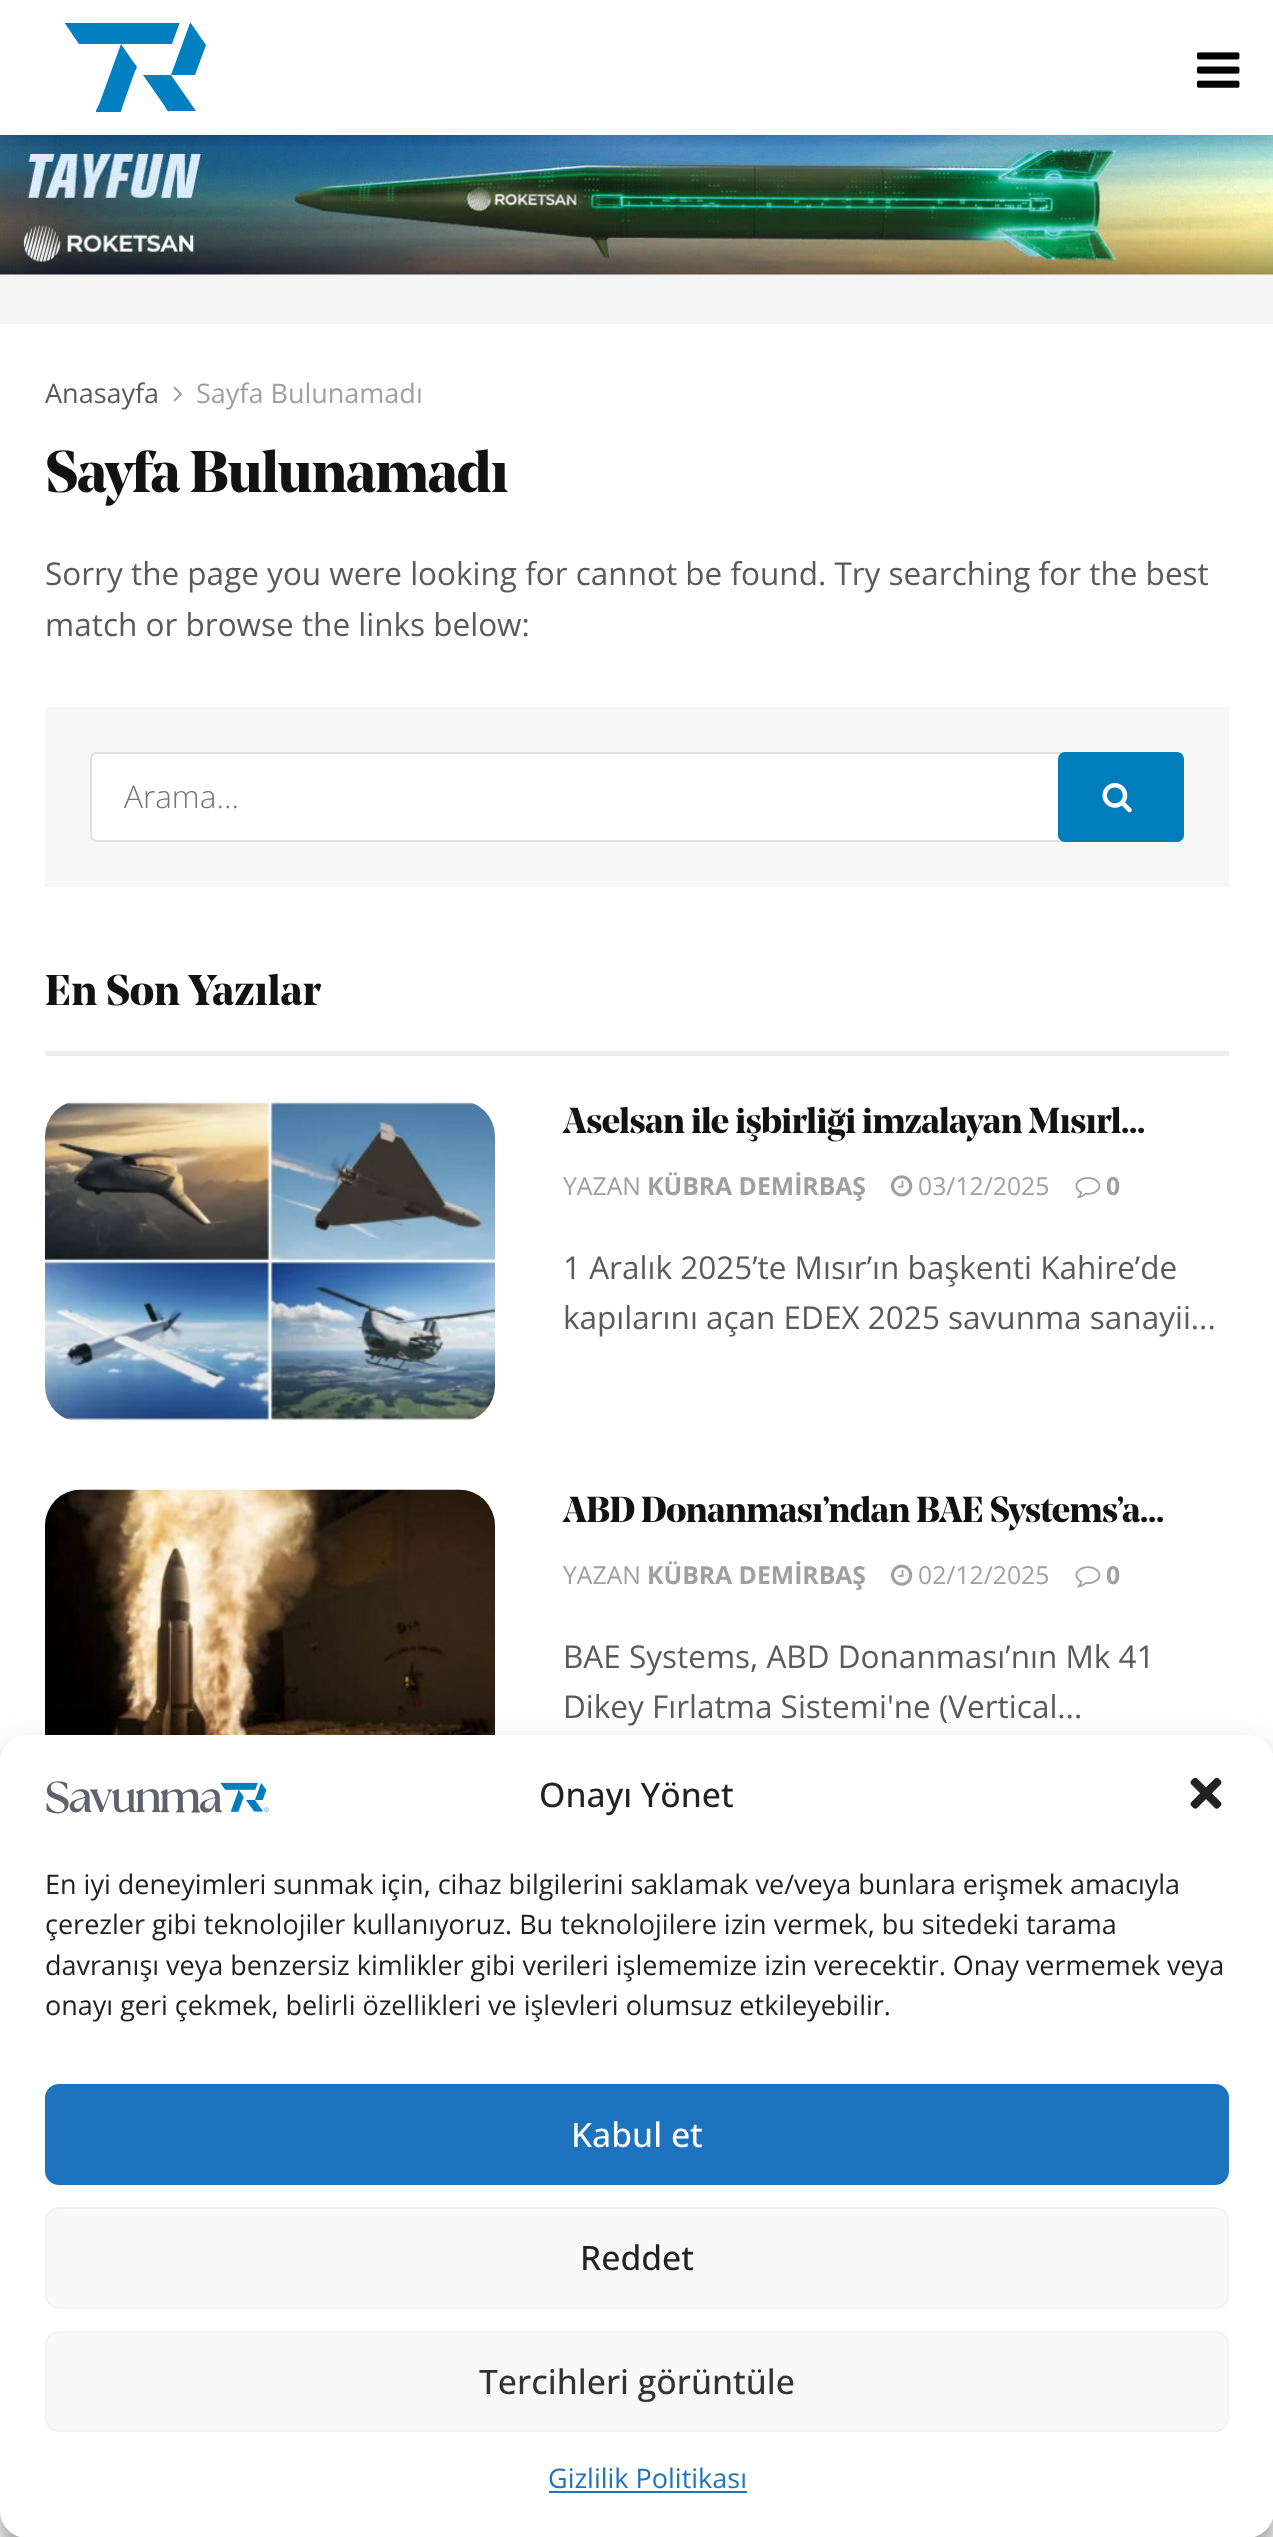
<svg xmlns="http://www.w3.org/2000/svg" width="1273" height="2537">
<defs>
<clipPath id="clip1"><rect x="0" y="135" width="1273" height="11"/></clipPath>
<clipPath id="clip2"><rect x="34" y="23" width="202" height="90"/></clipPath>
</defs>
<rect width="100%" height="100%" fill="#fff"/>
<rect y="274" width="1273" height="50" fill="#f5f5f5"/>
<image x="0" y="135" width="1273" height="140" href="media/2.png"/>
<g clip-path="url(#clip1)">
<rect y="5" width="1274" height="135" fill="#0000001a" filter="blur(7px)"/>
</g>
<path d="M190 23l-19 52h-28l21 30c5 8 2 6 9 6h23l-25-36h24l11-30l-16-23z" fill="#0080c0"/>
<g clip-path="url(#clip2)">
<path d="M79 44h42l-21 58c-5 12-7 10 4 10h12c7 0 4 1 7-7l11-31c4-10 4-5-2-14l-11-16h51l8-22h-116z" fill="#0080c0"/>
</g>
<image x="1197" y="52" width="43" height="36" href="media/1.png"/>
<text x="45" y="403" style="font-family:Open Sans;font-size:27px;fill:#5a5a5a">Anasayfa</text>
<image x="173" y="386" width="10" height="16" href="media/3.png"/>
<text x="196" y="403" style="font-family:Open Sans;font-size:27px;fill:#a0a0a0">Sayfa Bulunamadı</text>
<text x="45" y="492" style="font-family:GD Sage;font-size:58.5px;font-weight:bold;letter-spacing:-1.2px;fill:#121212">Sayfa Bulunamadı</text>
<text x="45" y="585" style="font-family:Open Sans;font-size:31.5px;fill:#5a5a5a">Sorry the page you were looking for cannot be found. Try searching for the best</text>
<text x="45" y="636" style="font-family:Open Sans;font-size:31.5px;fill:#5a5a5a">match or browse the links below:</text>
<rect x="45" y="707" width="1184" height="180" fill="#f7f7f7"/>
<rect x="91" y="753" width="1092" height="88" rx="6" fill="#fff" stroke="#e0e0e0" stroke-width="2"/>
<text x="124" y="808" style="font-family:Open Sans;font-size:31.5px;font-weight:300;fill:#757575">Arama...</text>
<rect x="1058" y="752" width="126" height="90" rx="7" fill="#007ebc"/>
<image x="1102" y="783" width="30" height="30" href="media/4.png"/>
<rect x="45" y="1051" width="1184" height="5" fill="#eee"/>
<text x="45" y="1005" style="font-family:GD Sage;font-size:42.75px;font-weight:bold;fill:#121212">En Son Yazılar</text>
<rect x="45" y="1100" width="450" height="322" rx="36" fill="#f7f7f7"/>
<image x="45" y="1100" width="450" height="322" href="media/5.png"/>
<text x="563" y="1133" style="font-family:GD Sage;font-size:36px;font-weight:bold;letter-spacing:-0.7px;fill:#121212">Aselsan ile işbirliği imzalayan Mısırl...</text>
<text x="563" y="1195" style="font-family:Open Sans;font-size:24.75px;fill:#a0a0a0">YAZAN</text>
<text x="647" y="1195" style="font-family:Open Sans;font-size:24.75px;font-weight:bold;fill:#a0a0a0">KÜBRA DEMİRBAŞ</text>
<image x="891" y="1175" width="22" height="22" href="media/6.png"/>
<text x="918" y="1195" style="font-family:Open Sans;font-size:24.75px;fill:#a0a0a0">03/12/2025</text>
<image x="1075" y="1177" width="26" height="22" href="media/7.png"/>
<text x="1106" y="1195" style="font-family:Open Sans;font-size:24.75px;font-weight:bold;fill:#a0a0a0">0</text>
<text x="563" y="1279" style="font-family:Open Sans;font-size:31.5px;fill:#5a5a5a">1 Aralık 2025’te Mısır’ın başkenti Kahire’de</text>
<text x="563" y="1329" style="font-family:Open Sans;font-size:31.5px;fill:#5a5a5a">kapılarını açan EDEX 2025 savunma sanayii...</text>
<rect x="58" y="1497" width="1" height="1" fill="#f9f9f9"/>
<image x="45" y="1489" width="450" height="246" href="media/8.png"/>
<text x="563" y="1522" style="font-family:GD Sage;font-size:36px;font-weight:bold;letter-spacing:-0.7px;fill:#121212">ABD Donanması’ndan BAE Systems’a...</text>
<text x="563" y="1584" style="font-family:Open Sans;font-size:24.75px;fill:#a0a0a0">YAZAN</text>
<text x="647" y="1584" style="font-family:Open Sans;font-size:24.75px;font-weight:bold;fill:#a0a0a0">KÜBRA DEMİRBAŞ</text>
<image x="891" y="1564" width="22" height="22" href="media/9.png"/>
<text x="918" y="1584" style="font-family:Open Sans;font-size:24.75px;fill:#a0a0a0">02/12/2025</text>
<image x="1075" y="1566" width="26" height="22" href="media/10.png"/>
<text x="1106" y="1584" style="font-family:Open Sans;font-size:24.75px;font-weight:bold;fill:#a0a0a0">0</text>
<text x="563" y="1668" style="font-family:Open Sans;font-size:31.5px;fill:#5a5a5a">BAE Systems, ABD Donanması’nın Mk 41</text>
<text x="563" y="1718" style="font-family:Open Sans;font-size:31.5px;fill:#5a5a5a">Dikey Fırlatma Sistemi'ne (Vertical...</text>
<rect y="1748" width="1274" height="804" rx="27" fill="#0000003b" filter="blur(7px)"/>
<rect y="1757" width="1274" height="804" rx="27" fill="#00000030" filter="blur(22.5px)"/>
<rect y="1735" width="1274" height="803" rx="27" fill="#fff"/>
<image x="46" y="1781" width="223" height="33" href="media/11.png"/>
<text x="539" y="1807" style="font-family:Open Sans;font-size:33.75px;font-weight:500;fill:#222">Onayı Yönet</text>
<image x="1190" y="1777" width="32" height="32" href="media/12.png"/>
<text x="45" y="1894" style="font-family:Open Sans;font-size:27px;fill:#222">En iyi deneyimleri sunmak için, cihaz bilgilerini saklamak ve/veya bunlara erişmek amacıyla</text>
<text x="45" y="1934" style="font-family:Open Sans;font-size:27px;fill:#222">çerezler gibi teknolojiler kullanıyoruz. Bu teknolojilere izin vermek, bu sitedeki tarama</text>
<text x="45" y="1975" style="font-family:Open Sans;font-size:27px;fill:#222">davranışı veya benzersiz kimlikler gibi verileri işlememize izin verecektir. Onay vermemek veya</text>
<text x="45" y="2015" style="font-family:Open Sans;font-size:27px;fill:#222">onayı geri çekmek, belirli özellikleri ve işlevleri olumsuz etkileyebilir.</text>
<rect x="46" y="2085" width="1182" height="99" rx="13" fill="#1e73be" stroke="#1e73be" stroke-width="2"/>
<text x="571" y="2147" style="font-family:Open Sans;font-size:33.75px;font-weight:500;fill:#fff">Kabul et</text>
<rect x="46" y="2208" width="1182" height="100" rx="13" fill="#f9f9f9" stroke="#f2f2f2" stroke-width="2"/>
<text x="580" y="2270" style="font-family:Open Sans;font-size:33.75px;font-weight:500;fill:#222">Reddet</text>
<rect x="46" y="2332" width="1182" height="99" rx="13" fill="#f9f9f9" stroke="#f2f2f2" stroke-width="2"/>
<text x="479" y="2394" style="font-family:Open Sans;font-size:33.75px;font-weight:500;fill:#333">Tercihleri görüntüle</text>
<text x="548" y="2488" style="font-family:Open Sans;font-size:27px;fill:#1e73be">Gizlilik Politikası</text>
<rect x="549" y="2491" width="198" height="2" fill="#1e73be"/>
</svg>
